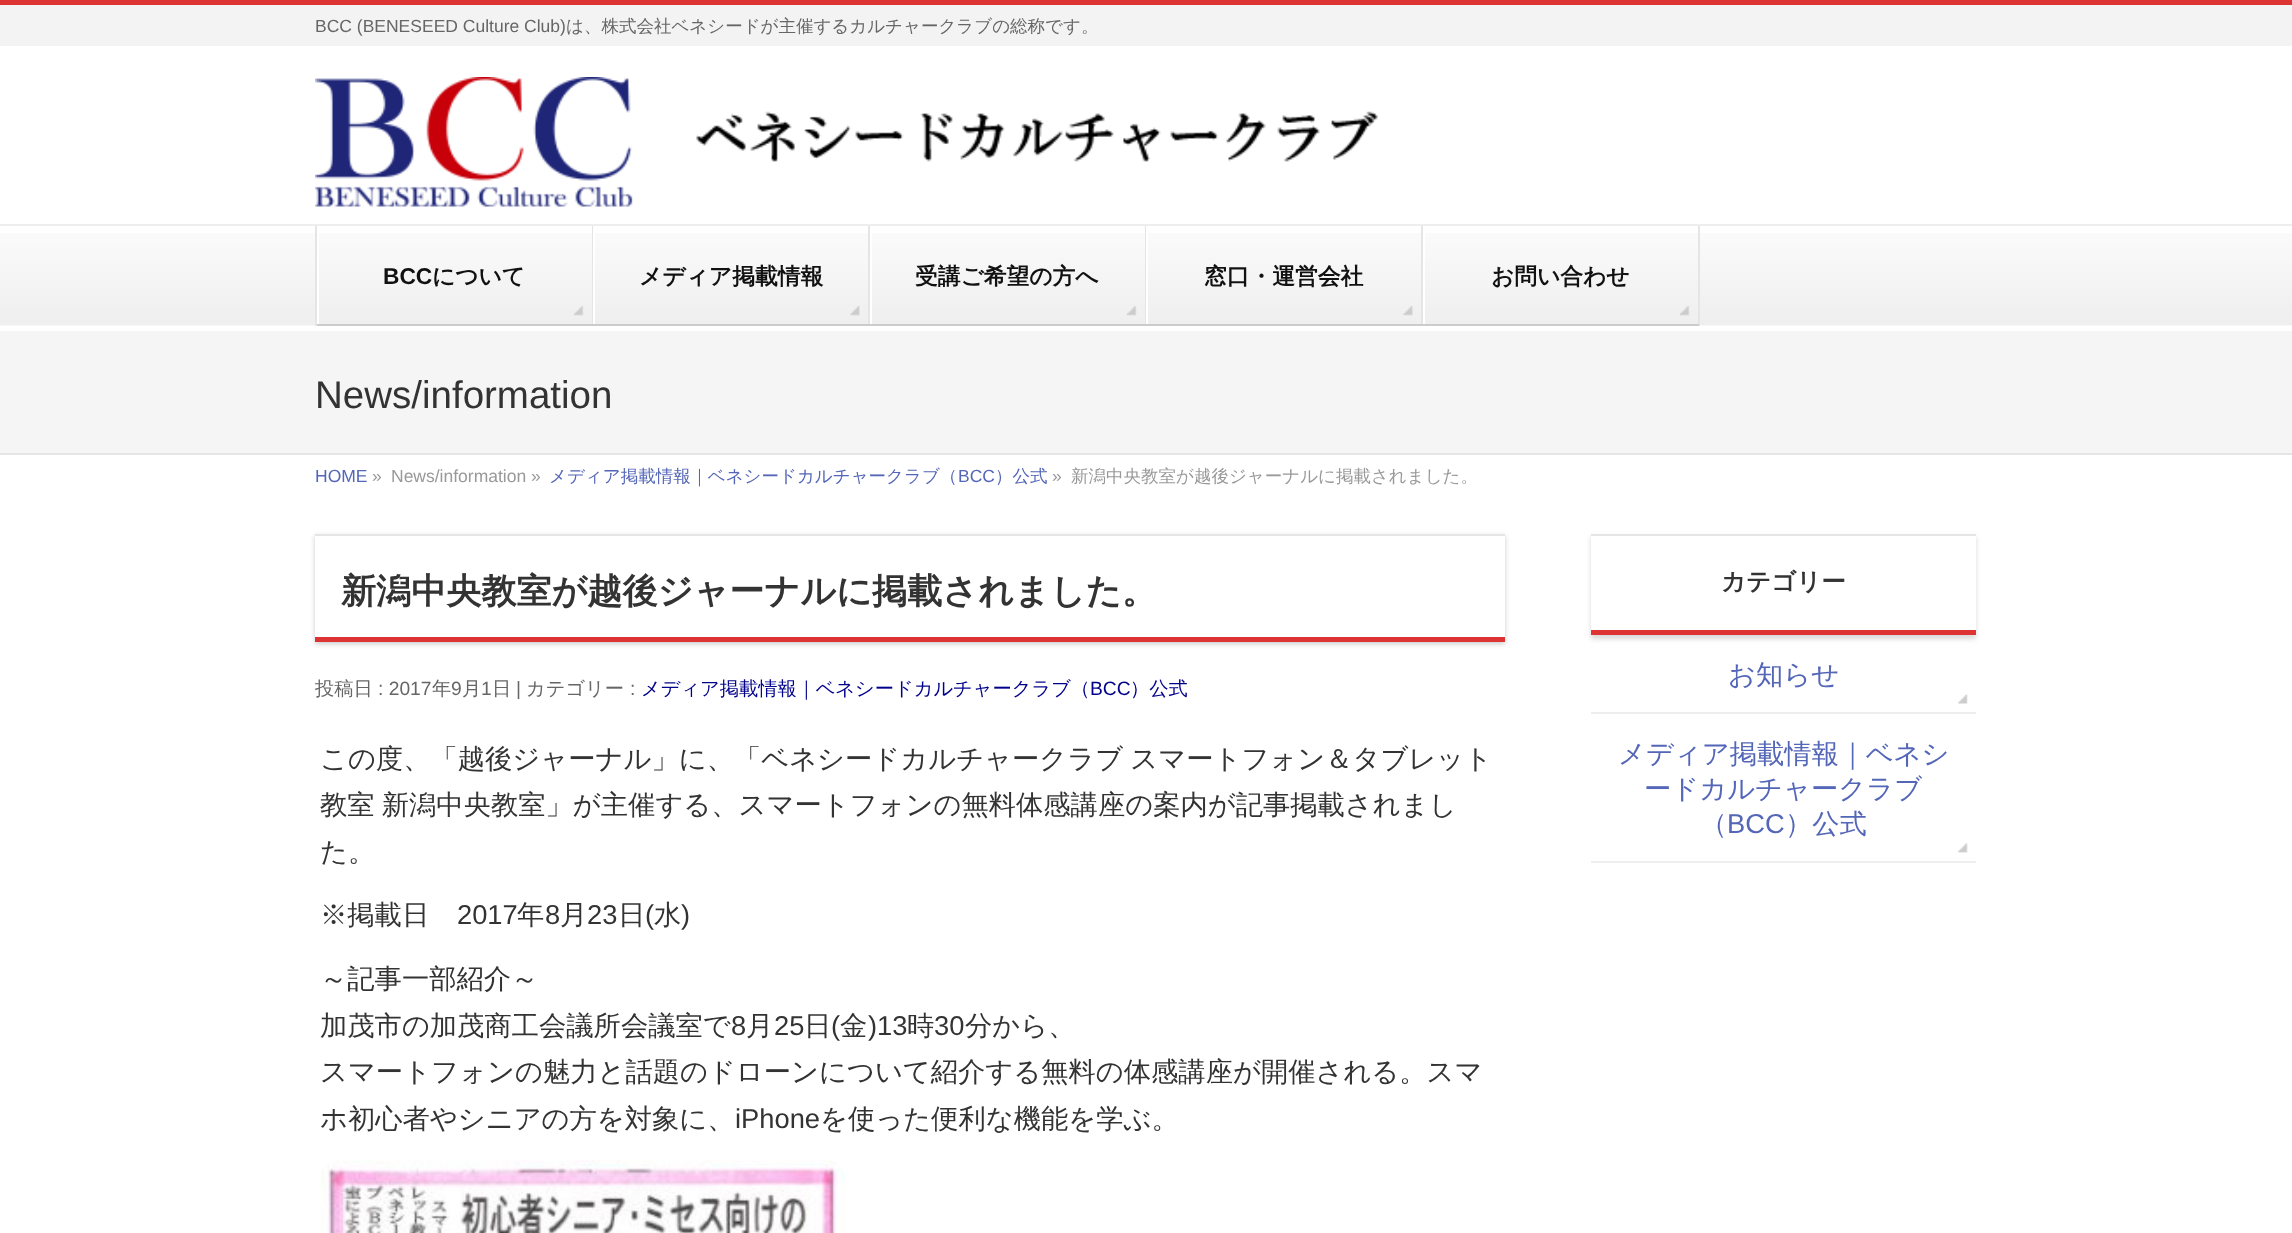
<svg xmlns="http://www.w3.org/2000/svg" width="2292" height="1233">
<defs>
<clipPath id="clip1"><path d="M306 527h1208v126h-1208zm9 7h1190v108h-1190z" clip-rule="evenodd"/></clipPath>
<clipPath id="clip2"><path d="M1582 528h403v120h-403zm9 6h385v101h-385z" clip-rule="evenodd"/></clipPath>
</defs>
<rect width="100%" height="100%" fill="#fff"/>
<rect y="5" width="2292" height="41" fill="#f3f3f3"/>
<rect width="2292" height="5" fill="#d33"/>
<text x="315" y="32" style="font-family:Liberation Sans;font-size:17.5px;fill:#666">BCC (BENESEED Culture Club)</text>
<text x="566" y="32" style="font-family:WenQuanYi Zen Hei;font-size:17.5px;font-weight:500;fill:#666">は、株式会社ベネシードが主催するカルチャークラブの総称です。</text>
<image x="315" y="77" width="1063" height="130" href="media/1.png"/>
<image x="0" y="233" width="2292" height="93" href="media/2.png"/>
<rect y="224" width="2292" height="2" fill="#eee"/>
<rect x="315" y="226" width="2" height="100" fill="#e5e5e5"/>
<rect x="317" y="226" width="2" height="100" fill="#fff"/>
<image x="574" y="306" width="10" height="10" href="media/3.png"/>
<rect x="592" y="226" width="1" height="100" fill="#e5e5e5"/>
<rect x="317" y="324" width="276" height="2" fill="#ccc"/>
<text x="383" y="284" style="font-family:Liberation Sans;font-size:22.75px;font-weight:bold;fill:#111">BCC</text>
<text x="432" y="284" style="font-family:WenQuanYi Zen Hei;font-size:22.75px;font-weight:bold;fill:#111">について</text>
<rect x="593" y="226" width="2" height="100" fill="#fff"/>
<image x="850" y="306" width="10" height="10" href="media/4.png"/>
<rect x="868" y="226" width="2" height="100" fill="#e5e5e5"/>
<rect x="593" y="324" width="277" height="2" fill="#ccc"/>
<text x="639" y="284" style="font-family:WenQuanYi Zen Hei;font-size:22.75px;font-weight:bold;fill:#111">メディア掲載情報</text>
<rect x="870" y="226" width="2" height="100" fill="#fff"/>
<image x="1127" y="306" width="10" height="10" href="media/3.png"/>
<rect x="1145" y="226" width="1" height="100" fill="#e5e5e5"/>
<rect x="870" y="324" width="276" height="2" fill="#ccc"/>
<text x="915" y="284" style="font-family:WenQuanYi Zen Hei;font-size:22.75px;font-weight:bold;fill:#111">受講ご希望の方へ</text>
<rect x="1146" y="226" width="2" height="100" fill="#fff"/>
<image x="1403" y="306" width="10" height="10" href="media/5.png"/>
<rect x="1421" y="226" width="2" height="100" fill="#e5e5e5"/>
<rect x="1146" y="324" width="277" height="2" fill="#ccc"/>
<text x="1204" y="284" style="font-family:WenQuanYi Zen Hei;font-size:22.75px;font-weight:bold;fill:#111">窓口・運営会社</text>
<rect x="1423" y="226" width="2" height="100" fill="#fff"/>
<image x="1680" y="306" width="10" height="10" href="media/3.png"/>
<rect x="1698" y="226" width="2" height="100" fill="#e5e5e5"/>
<rect x="1423" y="324" width="276" height="2" fill="#ccc"/>
<text x="1491" y="284" style="font-family:WenQuanYi Zen Hei;font-size:22.75px;font-weight:bold;fill:#111">お問い合わせ</text>
<rect y="331" width="2292" height="122" fill="#f5f5f5"/>
<rect y="453" width="2292" height="2" fill="#e5e5e5"/>
<text x="315" y="408" style="font-family:Liberation Sans;font-size:38.5px;fill:#333">News/information</text>
<text x="315" y="482" style="font-family:Liberation Sans;font-size:17.5px;fill:#5466b7">HOME</text>
<text x="372" y="482" style="font-family:Liberation Sans;font-size:17.5px;fill:#999">»</text>
<text x="391" y="482" style="font-family:Liberation Sans;font-size:17.5px;fill:#999">News/information »</text>
<text x="549" y="482" style="font-family:WenQuanYi Zen Hei;font-size:17.5px;font-weight:500;fill:#5466b7">メディア掲載情報｜ベネシードカルチャークラブ（</text>
<text x="958" y="482" style="font-family:Liberation Sans;font-size:17.5px;fill:#5466b7">BCC</text>
<text x="995" y="482" style="font-family:WenQuanYi Zen Hei;font-size:17.5px;font-weight:500;fill:#5466b7">）公式</text>
<text x="1052" y="482" style="font-family:Liberation Sans;font-size:17.5px;fill:#999">»</text>
<text x="1071" y="482" style="font-family:WenQuanYi Zen Hei;font-size:17.5px;font-weight:500;fill:#999">新潟中央教室が越後ジャーナルに掲載されました。</text>
<g clip-path="url(#clip1)">
<rect x="315" y="536" width="1190" height="108" fill="#00000033" filter="blur(2.5px)"/>
</g>
<rect x="315" y="534" width="1190" height="2" fill="#e5e5e5"/>
<rect x="315" y="637" width="1190" height="5" fill="#d33"/>
<text x="341" y="603" style="font-family:WenQuanYi Zen Hei;font-size:35.1px;font-weight:bold;fill:#333">新潟中央教室が越後ジャーナルに掲載されました。</text>
<text x="315" y="695" style="font-family:WenQuanYi Zen Hei;font-size:19.25px;font-weight:500;fill:#666">投稿日</text>
<text x="378" y="695" style="font-family:Liberation Sans;font-size:19.25px;fill:#666">: 2017</text>
<text x="432" y="695" style="font-family:WenQuanYi Zen Hei;font-size:19.25px;font-weight:500;fill:#666">年</text>
<text x="451" y="695" style="font-family:Liberation Sans;font-size:19.25px;fill:#666">9</text>
<text x="462" y="695" style="font-family:WenQuanYi Zen Hei;font-size:19.25px;font-weight:500;fill:#666">月</text>
<text x="481" y="695" style="font-family:Liberation Sans;font-size:19.25px;fill:#666">1</text>
<text x="492" y="695" style="font-family:WenQuanYi Zen Hei;font-size:19.25px;font-weight:500;fill:#666">日</text>
<text x="516" y="695" style="font-family:Liberation Sans;font-size:19.25px;fill:#666">|</text>
<text x="526" y="695" style="font-family:WenQuanYi Zen Hei;font-size:19.25px;font-weight:500;fill:#666">カテゴリー</text>
<text x="630" y="695" style="font-family:Liberation Sans;font-size:19.25px;fill:#666">:</text>
<text x="641" y="695" style="font-family:WenQuanYi Zen Hei;font-size:19.25px;font-weight:500;fill:#00008b">メディア掲載情報｜ベネシードカルチャークラブ（</text>
<text x="1090" y="695" style="font-family:Liberation Sans;font-size:19.25px;fill:#00008b">BCC</text>
<text x="1130" y="695" style="font-family:WenQuanYi Zen Hei;font-size:19.25px;font-weight:500;fill:#00008b">）公式</text>
<text x="320" y="768" word-spacing="-1" style="font-family:WenQuanYi Zen Hei;font-size:27.3px;font-weight:500;fill:#333">この度、「越後ジャーナル」に、「ベネシードカルチャークラブ スマートフォン＆タブレット</text>
<text x="320" y="814" word-spacing="-1" style="font-family:WenQuanYi Zen Hei;font-size:27.3px;font-weight:500;fill:#333">教室 新潟中央教室」が主催する、スマートフォンの無料体感講座の案内が記事掲載されまし</text>
<text x="320" y="861" style="font-family:WenQuanYi Zen Hei;font-size:27.3px;font-weight:500;fill:#333">た。</text>
<text x="320" y="924" style="font-family:WenQuanYi Zen Hei;font-size:27.3px;font-weight:500;fill:#333">※掲載日</text>
<text x="457" y="924" style="font-family:Liberation Sans;font-size:27.3px;fill:#333">2017</text>
<text x="517" y="924" style="font-family:WenQuanYi Zen Hei;font-size:27.3px;font-weight:500;fill:#333">年</text>
<text x="545" y="924" style="font-family:Liberation Sans;font-size:27.3px;fill:#333">8</text>
<text x="560" y="924" style="font-family:WenQuanYi Zen Hei;font-size:27.3px;font-weight:500;fill:#333">月</text>
<text x="587" y="924" style="font-family:Liberation Sans;font-size:27.3px;fill:#333">23</text>
<text x="618" y="924" style="font-family:WenQuanYi Zen Hei;font-size:27.3px;font-weight:500;fill:#333">日</text>
<text x="645" y="924" style="font-family:Liberation Sans;font-size:27.3px;fill:#333">(</text>
<text x="654" y="924" style="font-family:WenQuanYi Zen Hei;font-size:27.3px;font-weight:500;fill:#333">水</text>
<text x="681" y="924" style="font-family:Liberation Sans;font-size:27.3px;fill:#333">)</text>
<text x="320" y="988" style="font-family:WenQuanYi Zen Hei;font-size:27.3px;font-weight:500;fill:#333">～記事一部紹介～</text>
<text x="320" y="1035" style="font-family:WenQuanYi Zen Hei;font-size:27.3px;font-weight:500;fill:#333">加茂市の加茂商工会議所会議室で</text>
<text x="731" y="1035" style="font-family:Liberation Sans;font-size:27.3px;fill:#333">8</text>
<text x="746" y="1035" style="font-family:WenQuanYi Zen Hei;font-size:27.3px;font-weight:500;fill:#333">月</text>
<text x="774" y="1035" style="font-family:Liberation Sans;font-size:27.3px;fill:#333">25</text>
<text x="804" y="1035" style="font-family:WenQuanYi Zen Hei;font-size:27.3px;font-weight:500;fill:#333">日</text>
<text x="831" y="1035" style="font-family:Liberation Sans;font-size:27.3px;fill:#333">(</text>
<text x="840" y="1035" style="font-family:WenQuanYi Zen Hei;font-size:27.3px;font-weight:500;fill:#333">金</text>
<text x="868" y="1035" style="font-family:Liberation Sans;font-size:27.3px;fill:#333">)13</text>
<text x="907" y="1035" style="font-family:WenQuanYi Zen Hei;font-size:27.3px;font-weight:500;fill:#333">時</text>
<text x="934" y="1035" style="font-family:Liberation Sans;font-size:27.3px;fill:#333">30</text>
<text x="965" y="1035" style="font-family:WenQuanYi Zen Hei;font-size:27.3px;font-weight:500;fill:#333">分から、</text>
<text x="320" y="1081" style="font-family:WenQuanYi Zen Hei;font-size:27.3px;font-weight:500;fill:#333">スマートフォンの魅力と話題のドローンについて紹介する無料の体感講座が開催される。スマ</text>
<text x="320" y="1128" style="font-family:WenQuanYi Zen Hei;font-size:27.3px;font-weight:500;fill:#333">ホ初心者やシニアの方を対象に、</text>
<text x="735" y="1128" style="font-family:Liberation Sans;font-size:27.3px;fill:#333">iPhone</text>
<text x="820" y="1128" style="font-family:WenQuanYi Zen Hei;font-size:27.3px;font-weight:500;fill:#333">を使った便利な機能を学ぶ。</text>
<image x="320" y="1160" width="525" height="73" href="media/6.png"/>
<g clip-path="url(#clip2)">
<rect x="1591" y="537" width="385" height="102" fill="#00000026" filter="blur(2.5px)"/>
</g>
<rect x="1591" y="534" width="385" height="2" fill="#e5e5e5"/>
<rect x="1591" y="630" width="385" height="5" fill="#d33"/>
<text x="1721" y="590" style="font-family:WenQuanYi Zen Hei;font-size:24.5px;font-weight:bold;fill:#333">カテゴリー</text>
<rect x="1591" y="712" width="385" height="2" fill="#eee"/>
<image x="1958" y="694" width="10" height="10" href="media/7.png"/>
<text x="1728" y="684" style="font-family:WenQuanYi Zen Hei;font-size:27.3px;font-weight:500;fill:#5466b7">お知らせ</text>
<rect x="1591" y="861" width="385" height="2" fill="#eee"/>
<image x="1958" y="843" width="10" height="10" href="media/8.png"/>
<text x="1618" y="763" style="font-family:WenQuanYi Zen Hei;font-size:27.3px;font-weight:500;fill:#5466b7">メディア掲載情報｜ベネシ</text>
<text x="1644" y="798" style="font-family:WenQuanYi Zen Hei;font-size:27.3px;font-weight:500;fill:#5466b7">ードカルチャークラブ</text>
<text x="1700" y="833" style="font-family:WenQuanYi Zen Hei;font-size:27.3px;font-weight:500;fill:#5466b7">（</text>
<text x="1727" y="833" style="font-family:Liberation Sans;font-size:27.3px;fill:#5466b7">BCC</text>
<text x="1785" y="833" style="font-family:WenQuanYi Zen Hei;font-size:27.3px;font-weight:500;fill:#5466b7">）公式</text>
</svg>
